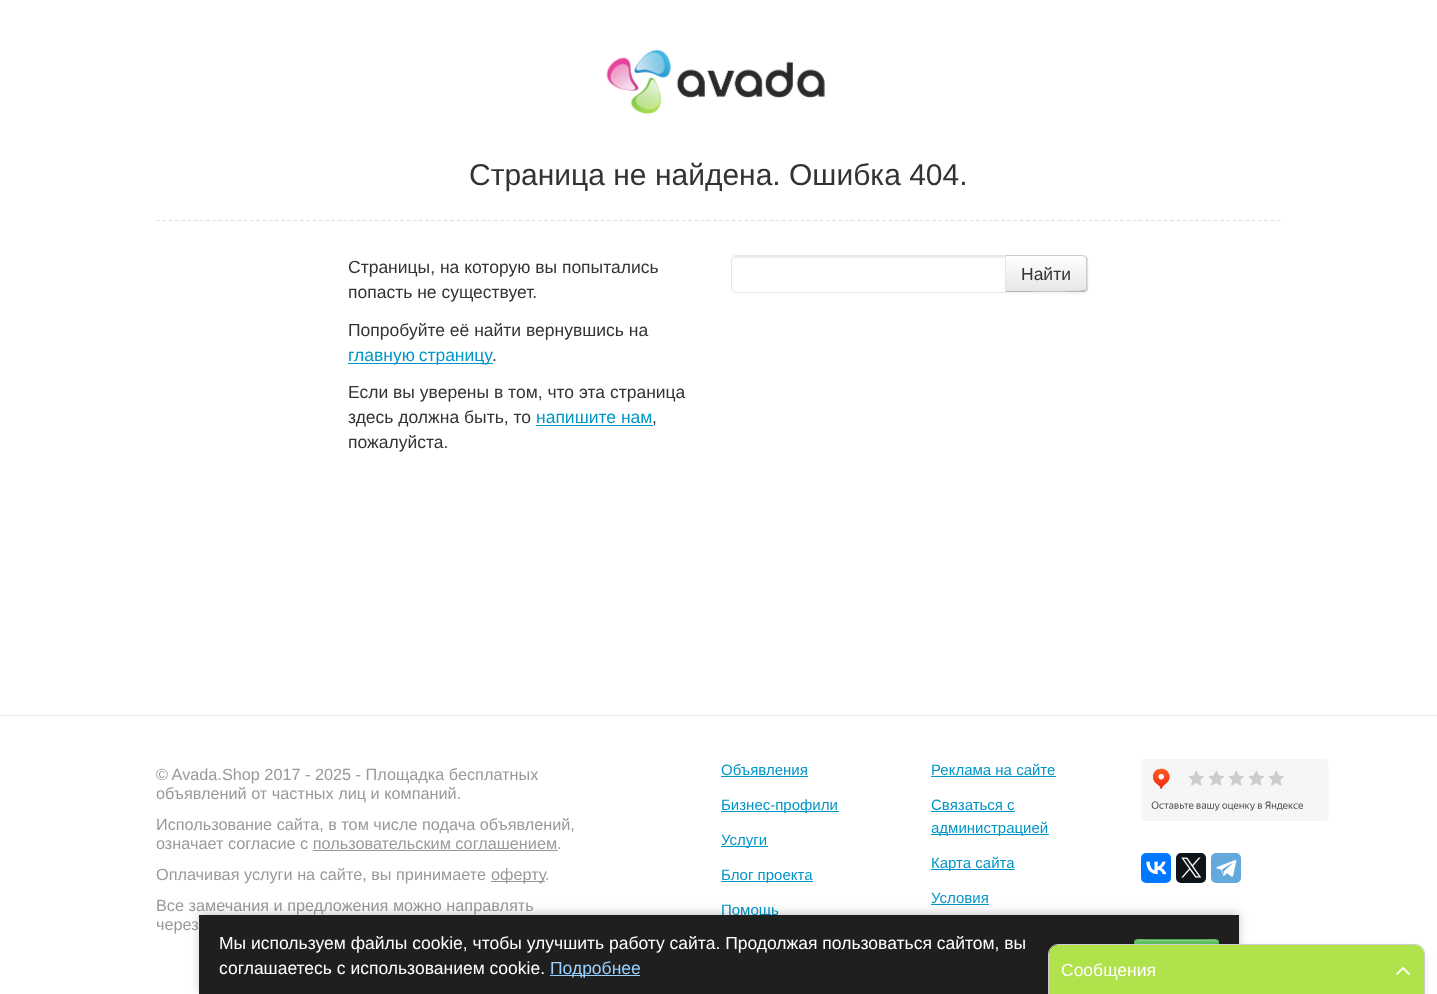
<svg xmlns="http://www.w3.org/2000/svg" width="1437" height="994">
<defs>
<clipPath id="clip1"><path d="M1005 255h78c3 0 5 2 5 5v28c0 3-2 5-5 5h-78z"/></clipPath>
<linearGradient id="g1" gradientUnits="userSpaceOnUse" x1="1046" y1="256" x2="1046" y2="291"><stop offset="0" stop-color="#fff"/><stop offset="1" stop-color="#e6e6e6"/></linearGradient>
<clipPath id="clip2"><rect x="1134" y="939" width="85" height="32" rx="4"/></clipPath>
<linearGradient id="g2" gradientUnits="userSpaceOnUse" x1="1176" y1="940" x2="1176" y2="970"><stop offset="0" stop-color="#62c462"/><stop offset="1" stop-color="#51a351"/></linearGradient>
</defs>
<rect width="100%" height="100%" fill="#fff"/>
<image x="606" y="49" width="219" height="65" href="media/1.png"/>
<text x="469" y="185" style="font-family:Liberation Sans;font-size:30px;fill:#333">Страница не найдена. Ошибка 404.</text>
<path d="M156 220.5h1125" fill="none" stroke="#ddd" stroke-width="1.2" stroke-dasharray="3.75 2.51"/>
<text x="348" y="273" style="font-family:Liberation Sans;font-size:17.5px;fill:#333">Страницы, на которую вы попытались</text>
<text x="348" y="298" style="font-family:Liberation Sans;font-size:17.5px;fill:#333">попасть не существует.</text>
<text x="348" y="336" style="font-family:Liberation Sans;font-size:17.5px;fill:#333">Попробуйте её найти вернувшись на</text>
<rect x="348" y="363" width="145" height="1" fill="#0096c7"/>
<text x="348" y="361" word-spacing="-1" style="font-family:Liberation Sans;font-size:17.5px;fill:#0096c7">главную страницу</text>
<text x="492" y="361" style="font-family:Liberation Sans;font-size:17.5px;fill:#333">.</text>
<text x="348" y="398" style="font-family:Liberation Sans;font-size:17.5px;fill:#333">Если вы уверены в том, что эта страница</text>
<text x="348" y="423" style="font-family:Liberation Sans;font-size:17.5px;fill:#333">здесь должна быть, то</text>
<text x="536" y="423" style="font-family:Liberation Sans;font-size:17.5px;fill:#0096c7">напишите нам</text>
<rect x="536" y="425" width="117" height="1" fill="#0096c7"/>
<text x="652" y="423" style="font-family:Liberation Sans;font-size:17.5px;fill:#333">,</text>
<text x="348" y="448" style="font-family:Liberation Sans;font-size:17.5px;fill:#333">пожалуйста.</text>
<rect x="1005" y="256" width="83" height="38" rx="5" fill="#0000000d" filter="blur(1px)"/>
<path d="M1005 255h78c3 0 5 2 5 5v28c0 3-2 5-5 5h-78z" fill="#f5f5f5"/>
<g clip-path="url(#clip1)">
<rect x="1006" y="256" width="82" height="35" fill="url(#g1)"/>
</g>
<path d="M1005 255l1 1h77l2 1l1-1c-1 0-2-1-4-1z" fill="#ccc"/>
<path d="M736 255h270v38h-270c-3 0-5-2-5-5v-28c0-3 2-5 5-5z" fill="#fff"/>
<path d="M736 258h269v-2h-268c-2 0-3 1-4 3z" fill="#ececec"/>
<path d="M736 255.5h269.5v37h-269.5c-2.5 0-4.5-2-4.5-4.5v-28c0-2.5 2-4.5 4.5-4.5z" fill="none" stroke="#e5e5e5"/>
<path d="M1087.5 289.5l-1.5 1.5l-1-1c1-.5 1-1 1-2v-28c0-1 0-2-1-2.5l1-1l1.5 1.5z" fill="#ccc"/>
<path d="M1086 291c-1 1-3 1-4 1h-76v-1c9 0 77 1 79-1z" fill="#b3b3b3"/>
<text x="1021" y="280" style="font-family:Liberation Sans;font-size:17.5px;fill:#333">Найти</text>
<rect y="715" width="1437" height="1" fill="#e8edef"/>
<text x="156" y="780" style="font-family:Liberation Sans;font-size:16.25px;fill:#999">© Avada.Shop 2017 - 2025 - Площадка бесплатных</text>
<text x="156" y="799" style="font-family:Liberation Sans;font-size:16.25px;fill:#999">объявлений от частных лиц и компаний.</text>
<text x="156" y="830" style="font-family:Liberation Sans;font-size:16.25px;fill:#999">Использование сайта, в том числе подача объявлений,</text>
<text x="156" y="849" style="font-family:Liberation Sans;font-size:16.25px;fill:#999">означает согласие с пользовательским соглашением.</text>
<rect x="313" y="850" width="245" height="1" fill="#999"/>
<text x="156" y="880" style="font-family:Liberation Sans;font-size:16.25px;fill:#999">Оплачивая услуги на сайте, вы принимаете</text>
<rect x="491" y="881" width="54" height="1" fill="#999"/>
<text x="491" y="880" style="font-family:Liberation Sans;font-size:16.25px;fill:#999">оферту</text>
<text x="545" y="880" style="font-family:Liberation Sans;font-size:16.25px;fill:#999">.</text>
<text x="156" y="911" style="font-family:Liberation Sans;font-size:16.25px;fill:#999">Все замечания и предложения можно направлять</text>
<text x="156" y="930" style="font-family:Liberation Sans;font-size:16.25px;fill:#999">через</text>
<text x="721" y="775" style="font-family:Liberation Sans;font-size:15px;fill:#0096c7">Объявления</text>
<rect x="721" y="776" width="87" height="1" fill="#0096c7"/>
<rect x="721" y="811" width="118" height="1" fill="#0096c7"/>
<text x="721" y="810" style="font-family:Liberation Sans;font-size:15px;fill:#0096c7">Бизнес-профили</text>
<rect x="721" y="846" width="47" height="1" fill="#0096c7"/>
<text x="721" y="845" style="font-family:Liberation Sans;font-size:15px;fill:#0096c7">Услуги</text>
<rect x="721" y="881" width="92" height="1" fill="#0096c7"/>
<text x="721" y="880" style="font-family:Liberation Sans;font-size:15px;fill:#0096c7">Блог проекта</text>
<text x="721" y="915" style="font-family:Liberation Sans;font-size:15px;fill:#0096c7">Помощь</text>
<text x="931" y="775" style="font-family:Liberation Sans;font-size:15px;fill:#0096c7">Реклама на сайте</text>
<rect x="931" y="776" width="125" height="1" fill="#0096c7"/>
<text x="931" y="810" style="font-family:Liberation Sans;font-size:15px;fill:#0096c7">Связаться с</text>
<rect x="931" y="811" width="84" height="1" fill="#0096c7"/>
<rect x="931" y="834" width="118" height="1" fill="#0096c7"/>
<text x="931" y="833" style="font-family:Liberation Sans;font-size:15px;fill:#0096c7">администрацией</text>
<rect x="931" y="869" width="84" height="1" fill="#0096c7"/>
<text x="931" y="868" style="font-family:Liberation Sans;font-size:15px;fill:#0096c7">Карта сайта</text>
<text x="931" y="903" style="font-family:Liberation Sans;font-size:15px;fill:#0096c7">Условия</text>
<rect x="931" y="904" width="58" height="1" fill="#0096c7"/>
<image x="1141" y="759" width="188" height="62" href="media/2.png"/>
<rect x="1141" y="853" width="30" height="30" rx="5" fill="#07f"/>
<image x="1146" y="861" width="21" height="14" href="media/3.png"/>
<rect x="1176" y="853" width="30" height="30" rx="5" fill="#0f1419"/>
<image x="1181" y="857" width="21" height="21" href="media/4.png"/>
<rect x="1211" y="853" width="30" height="30" rx="5" fill="#64a9dc"/>
<image x="1216" y="860" width="21" height="17" href="media/5.png"/>
<rect x="199" y="913" width="1040" height="80" fill="#00000033" filter="blur(5px)"/>
<rect x="199" y="915" width="1040" height="79" fill="#1f1f1f"/>
<text x="219" y="949" style="font-family:Liberation Sans;font-size:17.5px;fill:#fff">Мы используем файлы cookie, чтобы улучшить работу сайта. Продолжая пользоваться сайтом, вы</text>
<text x="219" y="974" style="font-family:Liberation Sans;font-size:17.5px;fill:#fff">соглашаетесь с использованием cookie.</text>
<rect x="550" y="975" width="90" height="1" fill="#9bd1ff"/>
<text x="550" y="974" style="font-family:Liberation Sans;font-size:17.5px;fill:#9bd1ff">Подробнее</text>
<rect x="1134" y="939" width="85" height="32" rx="4" fill="#5bb75b"/>
<g clip-path="url(#clip2)">
<rect x="1134" y="940" width="85" height="4" fill="url(#g2)"/>
</g>
<path d="M1138 941h77c1 0 3 1 3 3c0-8-10-4-16-4h-52c-5 0-15-4-15 4c0-2 1-3 3-3z" fill="#ffffff33"/>
<path d="M1135.5 969.5c-2.5-2-1-11.5-1-14.5c0-18.5-3-15.5 16-15.5h51.5c19 0 16-3 16 15.5c0 3 1.5 12.5-1 14.5" fill="none" stroke="#0000001a" stroke-width="1.2"/>
<rect x="1048" y="949" width="377" height="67" rx="10" fill="#0000001a" filter="blur(4px)"/>
<rect x="1048.5" y="944.5" width="376" height="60" rx="9.5" fill="none" stroke="#ccc"/>
<path d="M1058 945h357c5 0 9 4 9 9v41h-375v-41c0-5 4-9 9-9z" fill="#b0e24c"/>
<text x="1061" y="976" style="font-family:Liberation Sans;font-size:17.5px;fill:#fff">Сообщения</text>
<image x="1396" y="966" width="14" height="9" href="media/6.png"/>
</svg>
